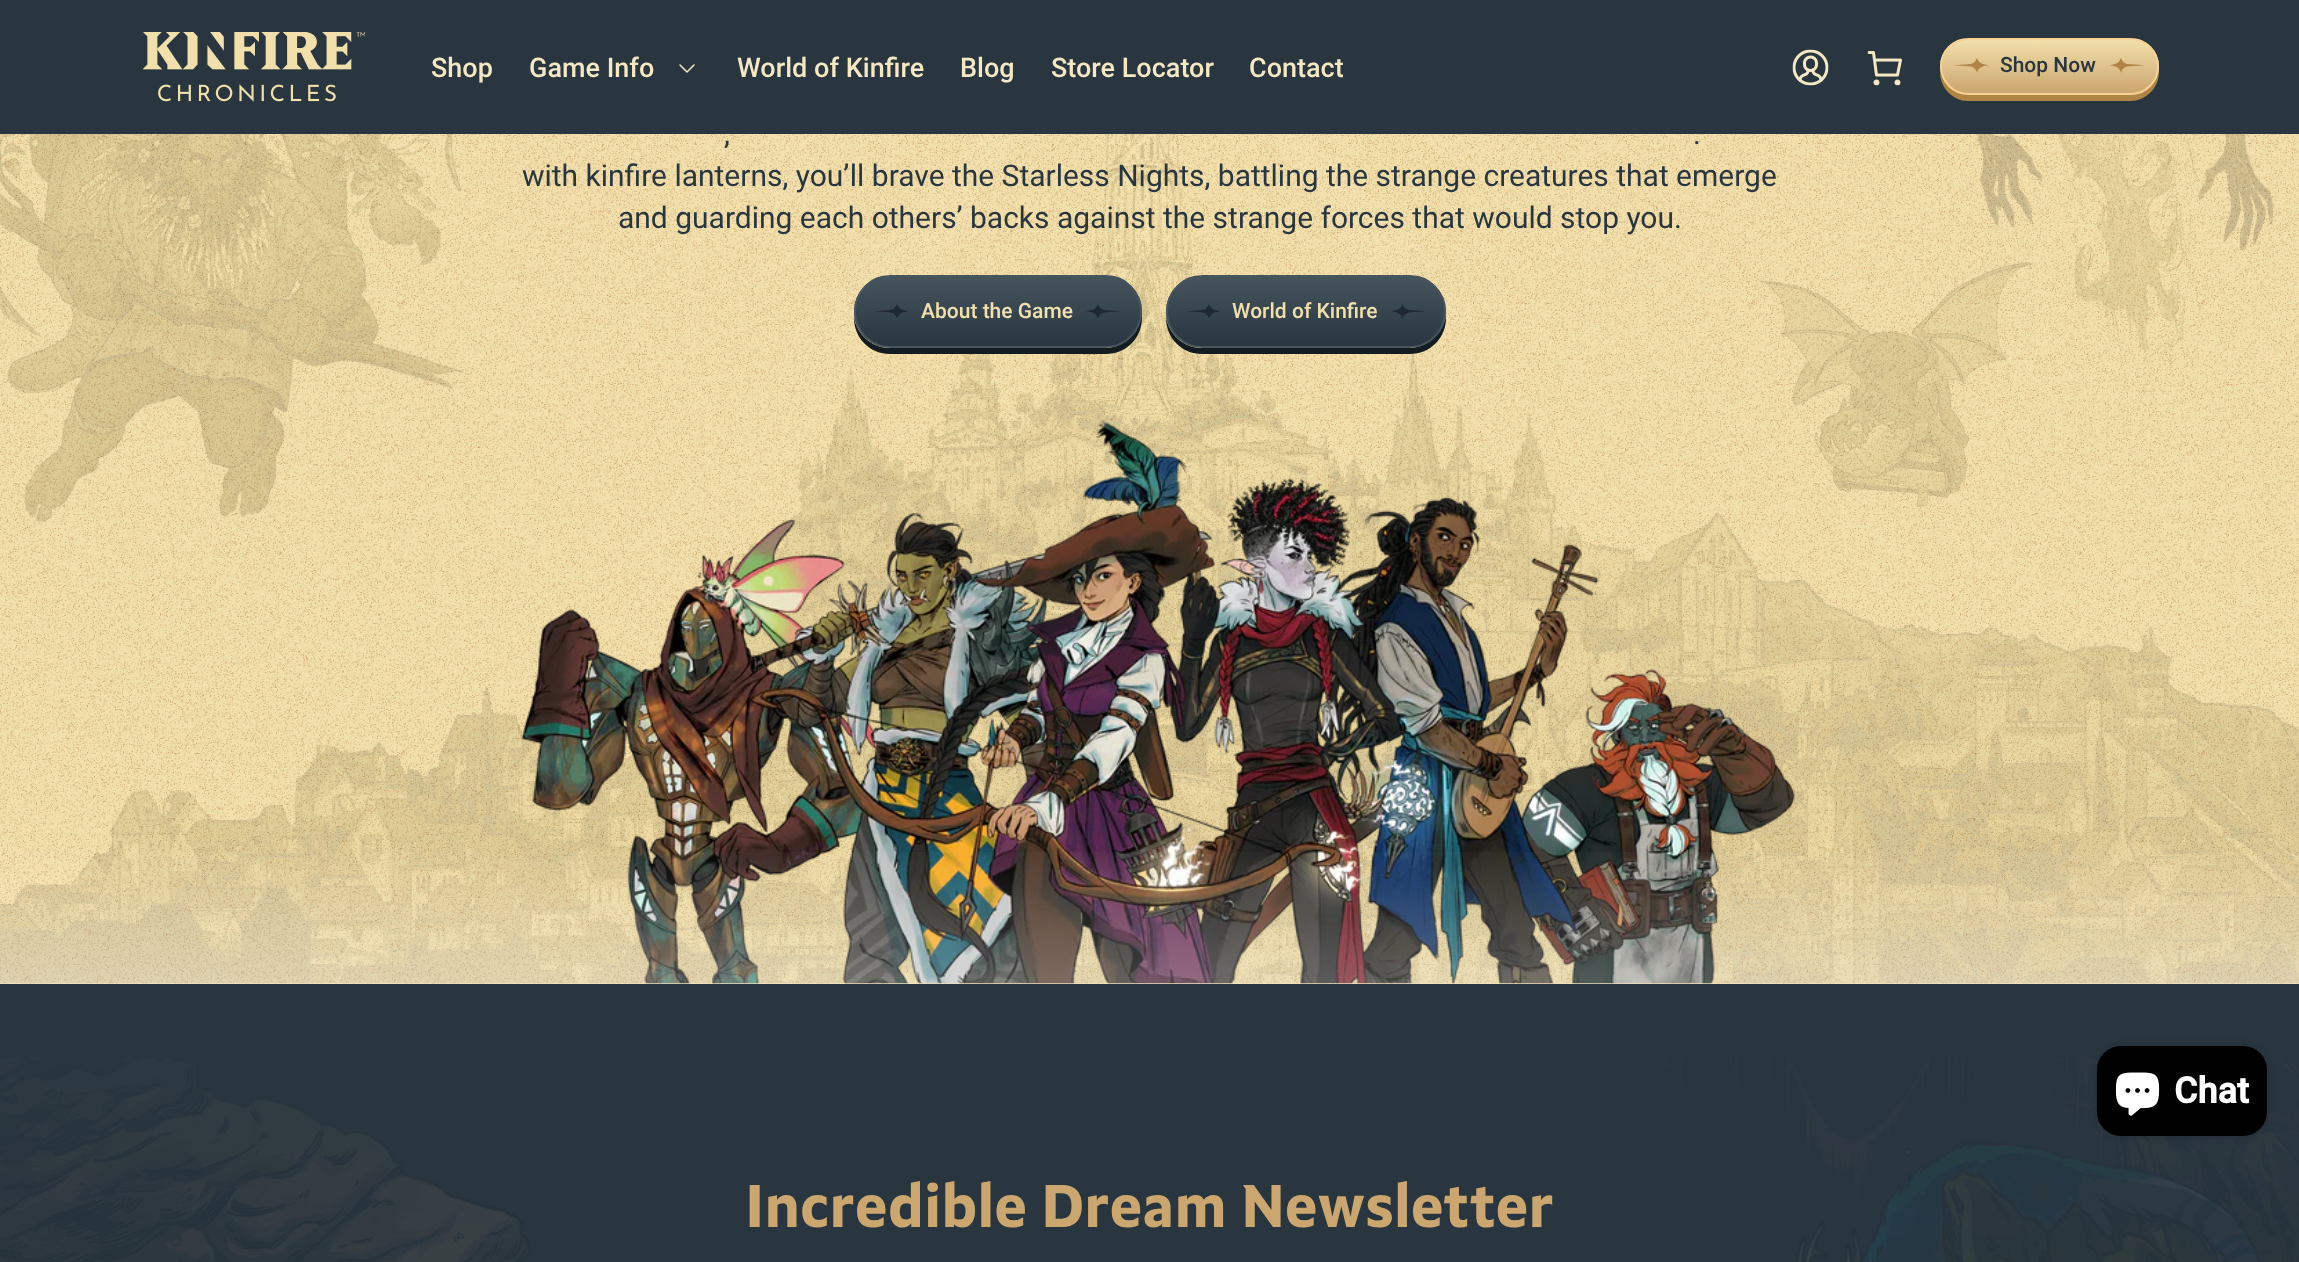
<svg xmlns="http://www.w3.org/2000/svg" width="2299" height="1262">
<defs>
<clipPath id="clip1"><rect x="1940" y="38" width="219" height="57" rx="28.5"/></clipPath>
<linearGradient id="g1" gradientUnits="userSpaceOnUse" x1="2049" y1="39" x2="2049" y2="93"><stop offset="0" stop-color="#f2e0ac"/><stop offset="1" stop-color="#cca66f"/></linearGradient>
<clipPath id="clip2"><rect x="854" y="275" width="288" height="73" rx="36.5"/></clipPath>
<linearGradient id="g2" gradientUnits="userSpaceOnUse" x1="998" y1="276" x2="998" y2="347"><stop offset="0" stop-color="#46545e"/><stop offset="1" stop-color="#293640"/></linearGradient>
<clipPath id="clip3"><rect x="1166" y="275" width="280" height="73" rx="36.5"/></clipPath>
<linearGradient id="g3" gradientUnits="userSpaceOnUse" x1="1306" y1="276" x2="1306" y2="347"><stop offset="0" stop-color="#46545e"/><stop offset="1" stop-color="#293640"/></linearGradient>
<linearGradient id="g4" gradientUnits="userSpaceOnUse" x1="1150" y1="984" x2="1150" y2="840"><stop offset="0" stop-color="#fff" stop-opacity="0.25"/><stop offset="1" stop-color="#fff" stop-opacity="0"/></linearGradient>
</defs>
<rect width="100%" height="100%" fill="#293640"/>
<image x="143" y="32" width="222" height="70" href="media/1.png"/>
<text x="431" y="77" style="font-family:Roboto;font-size:27px;font-weight:500;fill:#f5e8c4">Shop</text>
<text x="529" y="77" style="font-family:Roboto;font-size:27px;font-weight:500;fill:#f5e8c4">Game Info</text>
<path d="M680 65l7 7l7-7" fill="none" stroke="#f5e8c4" stroke-width="1.5" stroke-linecap="round" stroke-linejoin="round"/>
<text x="737" y="77" style="font-family:Roboto;font-size:27px;font-weight:500;fill:#f5e8c4">World of Kinfire</text>
<text x="960" y="77" style="font-family:Roboto;font-size:27px;font-weight:500;fill:#f5e8c4">Blog</text>
<text x="1051" y="77" style="font-family:Roboto;font-size:27px;font-weight:500;fill:#f5e8c4">Store Locator</text>
<text x="1249" y="77" style="font-family:Roboto;font-size:27px;font-weight:500;fill:#f5e8c4">Contact</text>
<image x="1792" y="49" width="37" height="37" href="media/2.png"/>
<image x="1867" y="51" width="35" height="35" href="media/3.png"/>
<path d="M1940 71v1c0 16 13 29 28 29h162c16 0 29-13 29-29l-1-5c0 15-13 27-28 27h-162c-14 0-25-9-28-23z" fill="#b08444"/>
<g clip-path="url(#clip1)">
<rect x="1940" y="39" width="219" height="54" fill="url(#g1)"/>
</g>
<rect x="1941" y="39" width="217" height="55" rx="27.5" fill="none" stroke="#f6d294" stroke-width="2"/>
<image x="1953" y="58" width="36" height="15" href="media/4.png"/>
<text x="2000" y="72" style="font-family:Roboto;font-size:21px;font-weight:500;fill:#293640">Shop Now</text>
<image x="2109" y="58" width="36" height="15" href="media/5.png"/>
<rect y="134" width="2299" height="850" fill="#f2e0ac"/>
<image x="0" y="134" width="2299" height="850" href="media/6.png"/>
<image x="0" y="134" width="464" height="388" href="media/7.png"/>
<image x="1977" y="134" width="297" height="303" href="media/13.png"/>
<image x="1759" y="262" width="274" height="245" href="media/14.png"/>
<image x="0" y="134" width="2299" height="850" href="media/8.png"/>
<text x="724" y="144" style="font-family:Roboto;font-size:30px;fill:#293640">,</text>
<text x="1693" y="144" style="font-family:Roboto;font-size:30px;fill:#293640">.</text>
<text x="522" y="186" style="font-family:Roboto;font-size:30px;fill:#293640">with kinfire lanterns, you’ll brave the Starless Nights, battling the strange creatures that emerge</text>
<text x="618" y="228" style="font-family:Roboto;font-size:30px;fill:#293640">and guarding each others’ backs against the strange forces that would stop you.</text>
<path d="M854 317v1c0 20 16 36 36 36h216c20 0 36-16 36-36l-1-7c0 21-16 37-36 37h-215c-18 0-33-13-36-31z" fill="#151c21"/>
<g clip-path="url(#clip2)">
<rect x="854" y="276" width="288" height="71" fill="url(#g2)"/>
</g>
<rect x="855" y="276" width="286" height="71" rx="35.5" fill="none" stroke="#46545e" stroke-width="2"/>
<image x="874" y="304" width="35" height="14" href="media/9.png"/>
<text x="921" y="318" style="font-family:Roboto;font-size:21px;font-weight:500;fill:#f2e0ac">About the Game</text>
<image x="1086" y="304" width="35" height="14" href="media/10.png"/>
<path d="M1166 317v1c0 20 16 36 36 36h208c20 0 36-16 36-36v-4c-2 19-18 34-37 34h-207c-18 0-33-13-36-31z" fill="#151c21"/>
<g clip-path="url(#clip3)">
<rect x="1166" y="276" width="280" height="71" fill="url(#g3)"/>
</g>
<rect x="1167" y="276" width="278" height="71" rx="35.5" fill="none" stroke="#46545e" stroke-width="2"/>
<image x="1186" y="304" width="35" height="14" href="media/9.png"/>
<text x="1232" y="318" style="font-family:Roboto;font-size:21px;font-weight:500;fill:#f2e0ac">World of Kinfire</text>
<image x="1391" y="304" width="34" height="15" href="media/11.png"/>
<image x="521" y="420" width="1274" height="564" href="media/12.png"/>
<rect y="852" width="2299" height="132" fill="url(#g4)"/>
<image x="0" y="1057" width="2299" height="205" href="media/16.png"/>
<rect x="2097" y="1046" width="170" height="90" rx="24" fill="#00000026" filter="blur(4px)"/>
<rect x="2097" y="1046" width="170" height="90" rx="24" fill="#000"/>
<image x="2115" y="1072" width="45" height="44" href="media/15.png"/>
<text x="2174" y="1103" style="font-family:Roboto;font-size:36px;font-weight:bold;fill:#fff">Chat</text>
<text x="745" y="1227" style="font-family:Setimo;font-size:60px;font-weight:bold;fill:#cca66f">Incredible Dream Newsletter</text>
</svg>
